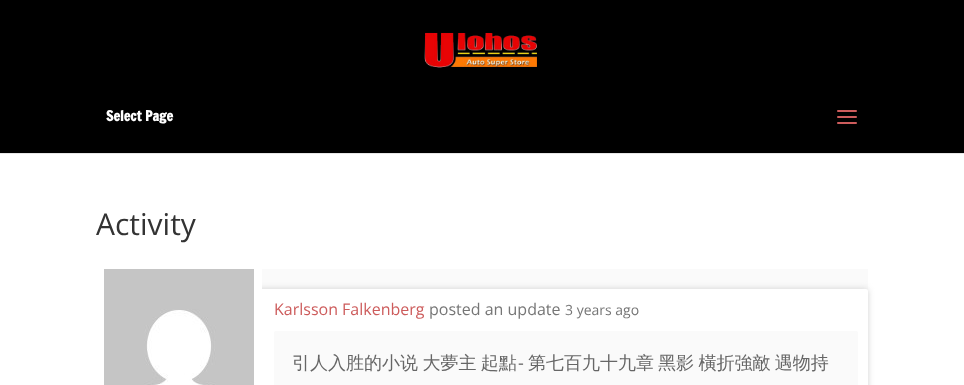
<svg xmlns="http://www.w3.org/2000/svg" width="964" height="385">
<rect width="100%" height="100%" fill="#fff"/>
<rect y="153" width="964" height="1" fill="#e6e6e6"/>
<rect width="964" height="153" fill="#000"/>
<image x="424" y="32" width="113" height="36" href="media/1.png"/>
<text x="106" y="121" style="font-family:Francois One;font-size:14px;font-weight:bold;fill:#fff">Select Page</text>
<image x="837" y="110" width="20" height="14" href="media/2.png"/>
<text x="96" y="235" style="font-family:Open Sans;font-size:30px;fill:#333">Activity</text>
<rect x="262" y="269" width="606" height="22" fill="#fafafa"/>
<rect x="124" y="289" width="744" height="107" rx="2" fill="#d2d2d2" filter="blur(3px)"/>
<rect x="124" y="289" width="744" height="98" rx="2" fill="#fff"/>
<rect x="100" y="265" width="158" height="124" fill="none" stroke="#fff" stroke-width="8"/>
<image x="104" y="269" width="150" height="116" href="media/3.png"/>
<text x="274" y="315" style="font-family:Open Sans;font-size:16px;fill:#cd5c5c">Karlsson Falkenberg</text>
<text x="429" y="315" style="font-family:Open Sans;font-size:16px;fill:#767676">posted an update</text>
<text x="565" y="315" style="font-family:Open Sans;font-size:14px;fill:#767676">3 years ago</text>
<rect x="274" y="331" width="584" height="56" rx="2" fill="#fafafa"/>
<text x="292" y="369" word-spacing="-1" style="font-family:WenQuanYi Zen Hei;font-size:18px;font-weight:500;fill:#666">引人入胜的小说 大夢主 起點</text>
<text x="518" y="369" style="font-family:Open Sans;font-size:18px;fill:#666">-</text>
<text x="528" y="369" style="font-family:WenQuanYi Zen Hei;font-size:18px;font-weight:500;fill:#666">第七百九十九章</text>
<text x="658" y="369" word-spacing="-1" style="font-family:WenQuanYi Zen Hei;font-size:18px;font-weight:500;fill:#666">黑影 橫折強敵 遇物持</text>
</svg>
